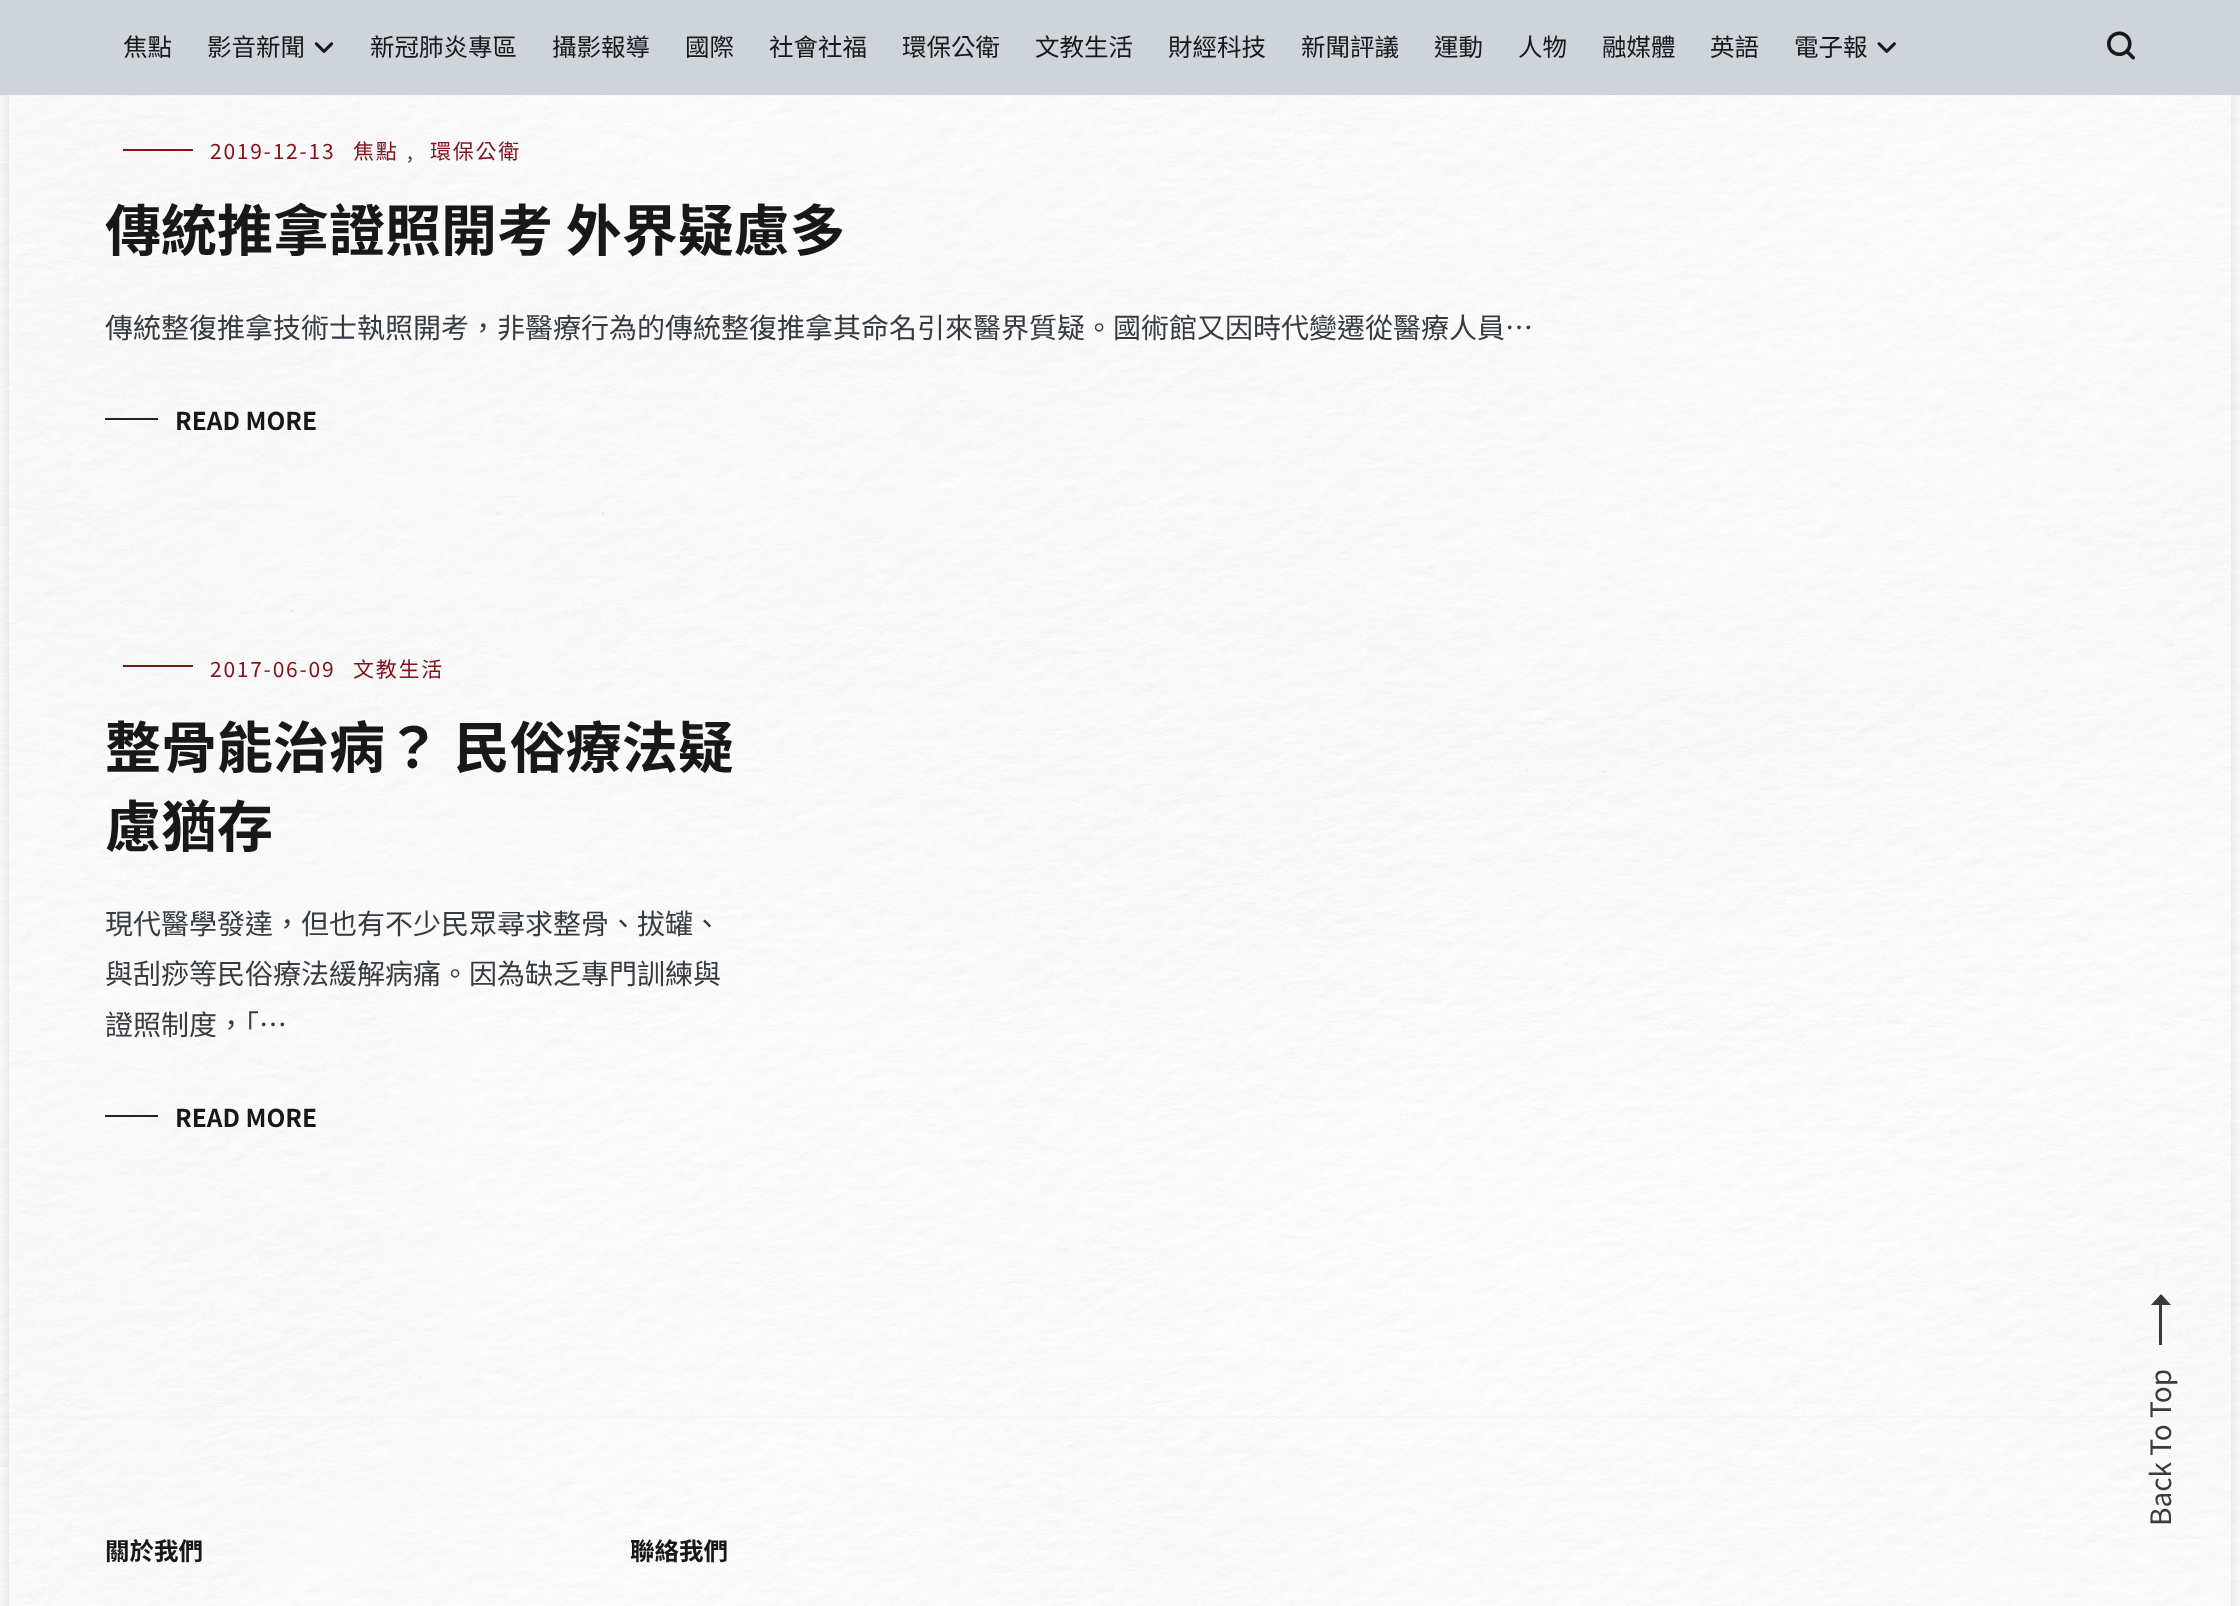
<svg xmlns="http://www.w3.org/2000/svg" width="2240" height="1606">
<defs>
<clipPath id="clip1"><path d="M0 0h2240v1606h-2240zm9-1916h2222v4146h-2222z" clip-rule="evenodd"/></clipPath>
</defs>
<rect width="100%" height="100%" fill="#fff"/>
<image x="0" y="95" width="2240" height="1511" href="media/1.png"/>
<g clip-path="url(#clip1)">
<rect x="9" y="-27" width="2222" height="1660" fill="#0000001a" filter="blur(9px)"/>
</g>
<rect width="2240" height="95" fill="#ced4da"/>
<text x="123" y="56" style="font-family:Noto Sans TC;font-size:24.5px;fill:#16181a">焦點</text>
<text x="207" y="56" style="font-family:Noto Sans TC;font-size:24.5px;fill:#16181a">影音新聞</text>
<image x="314" y="42" width="20" height="11" href="media/2.png"/>
<text x="370" y="56" style="font-family:Noto Sans TC;font-size:24.5px;fill:#16181a">新冠肺炎專區</text>
<text x="552" y="56" style="font-family:Noto Sans TC;font-size:24.5px;fill:#16181a">攝影報導</text>
<text x="685" y="56" style="font-family:Noto Sans TC;font-size:24.5px;fill:#16181a">國際</text>
<text x="769" y="56" style="font-family:Noto Sans TC;font-size:24.5px;fill:#16181a">社會社福</text>
<text x="902" y="56" style="font-family:Noto Sans TC;font-size:24.5px;fill:#16181a">環保公衛</text>
<text x="1035" y="56" style="font-family:Noto Sans TC;font-size:24.5px;fill:#16181a">文教生活</text>
<text x="1168" y="56" style="font-family:Noto Sans TC;font-size:24.5px;fill:#16181a">財經科技</text>
<text x="1301" y="56" style="font-family:Noto Sans TC;font-size:24.5px;fill:#16181a">新聞評議</text>
<text x="1434" y="56" style="font-family:Noto Sans TC;font-size:24.5px;fill:#16181a">運動</text>
<text x="1518" y="56" style="font-family:Noto Sans TC;font-size:24.5px;fill:#16181a">人物</text>
<text x="1602" y="56" style="font-family:Noto Sans TC;font-size:24.5px;fill:#16181a">融媒體</text>
<text x="1710" y="56" style="font-family:Noto Sans TC;font-size:24.5px;fill:#16181a">英語</text>
<text x="1794" y="56" style="font-family:Noto Sans TC;font-size:24.5px;fill:#16181a">電子報</text>
<image x="1877" y="42" width="19" height="11" href="media/3.png"/>
<image x="2107" y="31" width="28" height="29" href="media/4.png"/>
<rect x="123" y="149" width="70" height="2" fill="#82111c"/>
<text x="210" y="159" style="font-family:Noto Sans TC;font-size:21px;letter-spacing:1.75px;fill:#82111c">2019-12-13</text>
<text x="353" y="159" style="font-family:Noto Sans TC;font-size:21px;letter-spacing:1.75px;fill:#82111c">焦點</text>
<text x="407" y="159" style="font-family:Noto Sans TC;font-size:21px;letter-spacing:1.75px;fill:#363b40">,</text>
<text x="430" y="159" style="font-family:Noto Sans TC;font-size:21px;letter-spacing:1.75px;fill:#82111c">環保公衛</text>
<text x="105" y="251" style="font-family:Noto Sans TC;font-size:56px;font-weight:bold;fill:#16181a">傳統推拿證照開考 外界疑慮多</text>
<text x="105" y="338" style="font-family:Noto Sans TC;font-size:28px;fill:#363b40">傳統整復推拿技術士執照開考，非醫療行為的傳統整復推拿其命名引來醫界質疑。國術館又因時代變遷從醫療人員…</text>
<rect x="105" y="418" width="53" height="2" fill="#212529"/>
<text x="175" y="430" style="font-family:Noto Sans TC;font-size:24.5px;font-weight:bold;fill:#16181a">READ MORE</text>
<rect x="123" y="665" width="70" height="2" fill="#82111c"/>
<text x="210" y="677" style="font-family:Noto Sans TC;font-size:21px;letter-spacing:1.75px;fill:#82111c">2017-06-09</text>
<text x="353" y="677" style="font-family:Noto Sans TC;font-size:21px;letter-spacing:1.75px;fill:#82111c">文教生活</text>
<text x="105" y="768" style="font-family:Noto Sans TC;font-size:56px;font-weight:bold;fill:#16181a">整骨能治病？ 民俗療法疑</text>
<text x="105" y="847" style="font-family:Noto Sans TC;font-size:56px;font-weight:bold;fill:#16181a">慮猶存</text>
<text x="105" y="934" style="font-family:Noto Sans TC;font-size:28px;fill:#363b40">現代醫學發達，但也有不少民眾尋求整骨、拔罐、</text>
<text x="105" y="984" style="font-family:Noto Sans TC;font-size:28px;fill:#363b40">與刮痧等民俗療法緩解病痛。因為缺乏專門訓練與</text>
<text x="105" y="1035" style="font-family:Noto Sans TC;font-size:28px;fill:#363b40">證照制度，「…</text>
<rect x="105" y="1115" width="53" height="2" fill="#212529"/>
<text x="175" y="1127" style="font-family:Noto Sans TC;font-size:24.5px;font-weight:bold;fill:#16181a">READ MORE</text>
<rect x="9" y="1416" width="2222" height="2" fill="#f7f7f7"/>
<text x="105" y="1560" style="font-family:Noto Sans TC;font-size:24.5px;font-weight:bold;fill:#16181a">關於我們</text>
<text x="630" y="1560" style="font-family:Noto Sans TC;font-size:24.5px;font-weight:bold;fill:#16181a">聯絡我們</text>
<path d="M2161 1294l10 11h-20zm-2 51v-41h3v41z" fill="#363b40"/>
<text x="2171" y="1526" transform="rotate(-90 2171 1526)" style="font-family:Noto Sans TC;font-size:28px;fill:#363b40">Back To Top</text>
</svg>
